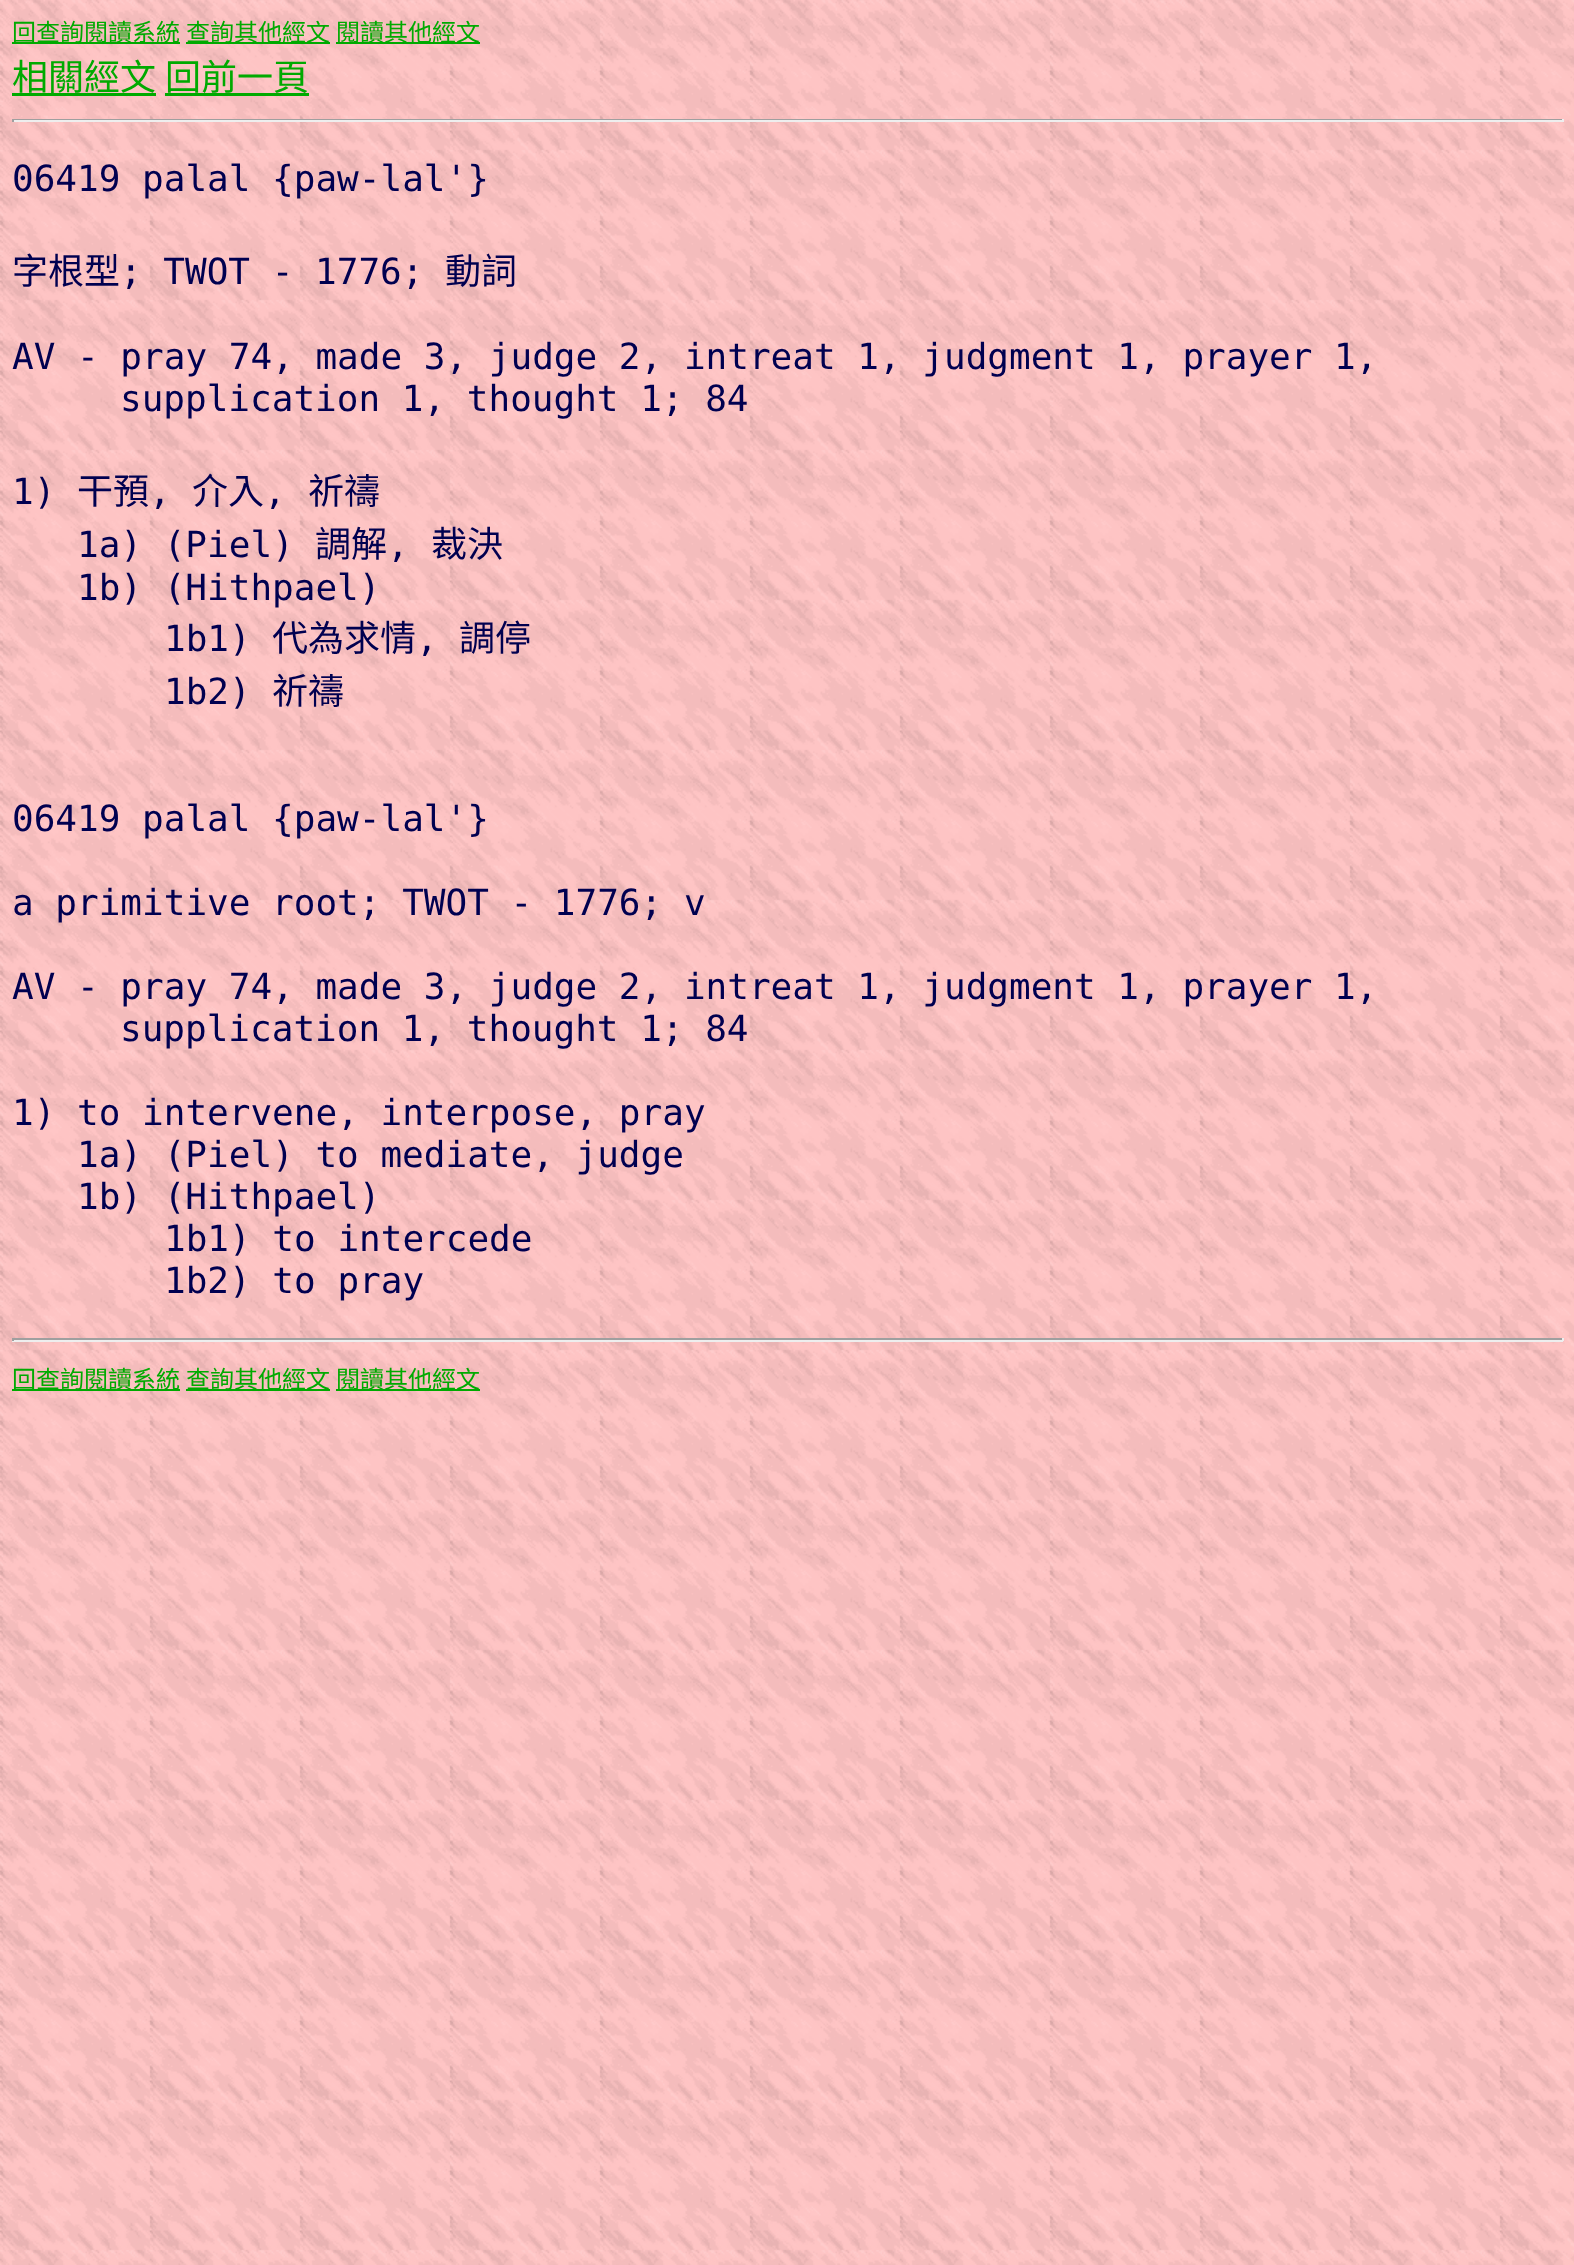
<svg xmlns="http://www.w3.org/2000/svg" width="1574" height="2265">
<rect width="100%" height="100%" fill="#fff"/>
<image x="0" y="0" width="1574" height="2265" href="media/1.png"/>
<rect x="12" y="42" width="168" height="2" fill="#0a0"/>
<text x="12" y="41" style="font-family:Noto Sans CJK TC;font-size:24px;fill:#0a0">回查詢閱讀系統</text>
<rect x="186" y="42" width="144" height="2" fill="#0a0"/>
<text x="186" y="41" style="font-family:Noto Sans CJK TC;font-size:24px;fill:#0a0">查詢其他經文</text>
<rect x="336" y="42" width="144" height="2" fill="#0a0"/>
<text x="336" y="41" style="font-family:Noto Sans CJK TC;font-size:24px;fill:#0a0">閱讀其他經文</text>
<text x="12" y="90" style="font-family:Noto Sans CJK TC;font-size:36px;fill:#0a0">相關經文</text>
<rect x="12" y="93" width="144" height="3" fill="#0a0"/>
<text x="165" y="90" style="font-family:Noto Sans CJK TC;font-size:36px;fill:#0a0">回前一頁</text>
<rect x="165" y="93" width="144" height="3" fill="#0a0"/>
<rect x="12" y="119" width="1551" height="1" fill="#9f9f9f"/>
<rect x="1562" y="119" width="2" height="3" fill="#eee"/>
<rect x="12" y="120" width="1551" height="2" fill="#eee"/>
<rect x="12" y="119" width="2" height="3" fill="#9f9f9f"/>
<text x="12" y="191" style="font-family:DejaVu Sans Mono;font-size:36px;fill:#000050">06419 palal {paw-lal'}</text>
<text x="12" y="284" style="font-family:Noto Sans CJK TC;font-size:36px;fill:#000050">字根型</text>
<text x="120" y="284" style="font-family:DejaVu Sans Mono;font-size:36px;fill:#000050">; TWOT - 1776;</text>
<text x="445" y="284" style="font-family:Noto Sans CJK TC;font-size:36px;fill:#000050">動詞</text>
<text x="12" y="369" style="font-family:DejaVu Sans Mono;font-size:36px;fill:#000050">AV - pray 74, made 3, judge 2, intreat 1, judgment 1, prayer 1,</text>
<text x="120" y="411" style="font-family:DejaVu Sans Mono;font-size:36px;fill:#000050">supplication 1, thought 1; 84</text>
<text x="12" y="504" style="font-family:DejaVu Sans Mono;font-size:36px;fill:#000050">1)</text>
<text x="77" y="504" style="font-family:Noto Sans CJK TC;font-size:36px;fill:#000050">干預</text>
<text x="149" y="504" style="font-family:DejaVu Sans Mono;font-size:36px;fill:#000050">,</text>
<text x="192" y="504" style="font-family:Noto Sans CJK TC;font-size:36px;fill:#000050">介入</text>
<text x="264" y="504" style="font-family:DejaVu Sans Mono;font-size:36px;fill:#000050">,</text>
<text x="308" y="504" style="font-family:Noto Sans CJK TC;font-size:36px;fill:#000050">祈禱</text>
<text x="77" y="557" style="font-family:DejaVu Sans Mono;font-size:36px;fill:#000050">1a) (Piel)</text>
<text x="315" y="557" style="font-family:Noto Sans CJK TC;font-size:36px;fill:#000050">調解</text>
<text x="387" y="557" style="font-family:DejaVu Sans Mono;font-size:36px;fill:#000050">,</text>
<text x="431" y="557" style="font-family:Noto Sans CJK TC;font-size:36px;fill:#000050">裁決</text>
<text x="77" y="600" style="font-family:DejaVu Sans Mono;font-size:36px;fill:#000050">1b) (Hithpael)</text>
<text x="164" y="651" style="font-family:DejaVu Sans Mono;font-size:36px;fill:#000050">1b1)</text>
<text x="272" y="651" style="font-family:Noto Sans CJK TC;font-size:36px;fill:#000050">代為求情</text>
<text x="416" y="651" style="font-family:DejaVu Sans Mono;font-size:36px;fill:#000050">,</text>
<text x="459" y="651" style="font-family:Noto Sans CJK TC;font-size:36px;fill:#000050">調停</text>
<text x="164" y="704" style="font-family:DejaVu Sans Mono;font-size:36px;fill:#000050">1b2)</text>
<text x="272" y="704" style="font-family:Noto Sans CJK TC;font-size:36px;fill:#000050">祈禱</text>
<text x="12" y="831" style="font-family:DejaVu Sans Mono;font-size:36px;fill:#000050">06419 palal {paw-lal'}</text>
<text x="12" y="915" style="font-family:DejaVu Sans Mono;font-size:36px;fill:#000050">a primitive root; TWOT - 1776; v</text>
<text x="12" y="999" style="font-family:DejaVu Sans Mono;font-size:36px;fill:#000050">AV - pray 74, made 3, judge 2, intreat 1, judgment 1, prayer 1,</text>
<text x="120" y="1041" style="font-family:DejaVu Sans Mono;font-size:36px;fill:#000050">supplication 1, thought 1; 84</text>
<text x="12" y="1125" style="font-family:DejaVu Sans Mono;font-size:36px;fill:#000050">1) to intervene, interpose, pray</text>
<text x="77" y="1167" style="font-family:DejaVu Sans Mono;font-size:36px;fill:#000050">1a) (Piel) to mediate, judge</text>
<text x="77" y="1209" style="font-family:DejaVu Sans Mono;font-size:36px;fill:#000050">1b) (Hithpael)</text>
<text x="164" y="1251" style="font-family:DejaVu Sans Mono;font-size:36px;fill:#000050">1b1) to intercede</text>
<text x="164" y="1293" style="font-family:DejaVu Sans Mono;font-size:36px;fill:#000050">1b2) to pray</text>
<rect x="12" y="1338" width="1551" height="2" fill="#9f9f9f"/>
<rect x="1562" y="1338" width="2" height="3" fill="#eee"/>
<rect x="12" y="1340" width="1551" height="2" fill="#eee"/>
<rect x="12" y="1338" width="2" height="3" fill="#9f9f9f"/>
<rect x="12" y="1389" width="168" height="2" fill="#0a0"/>
<text x="12" y="1388" style="font-family:Noto Sans CJK TC;font-size:24px;fill:#0a0">回查詢閱讀系統</text>
<rect x="186" y="1389" width="144" height="2" fill="#0a0"/>
<text x="186" y="1388" style="font-family:Noto Sans CJK TC;font-size:24px;fill:#0a0">查詢其他經文</text>
<rect x="336" y="1389" width="144" height="2" fill="#0a0"/>
<text x="336" y="1388" style="font-family:Noto Sans CJK TC;font-size:24px;fill:#0a0">閱讀其他經文</text>
</svg>
